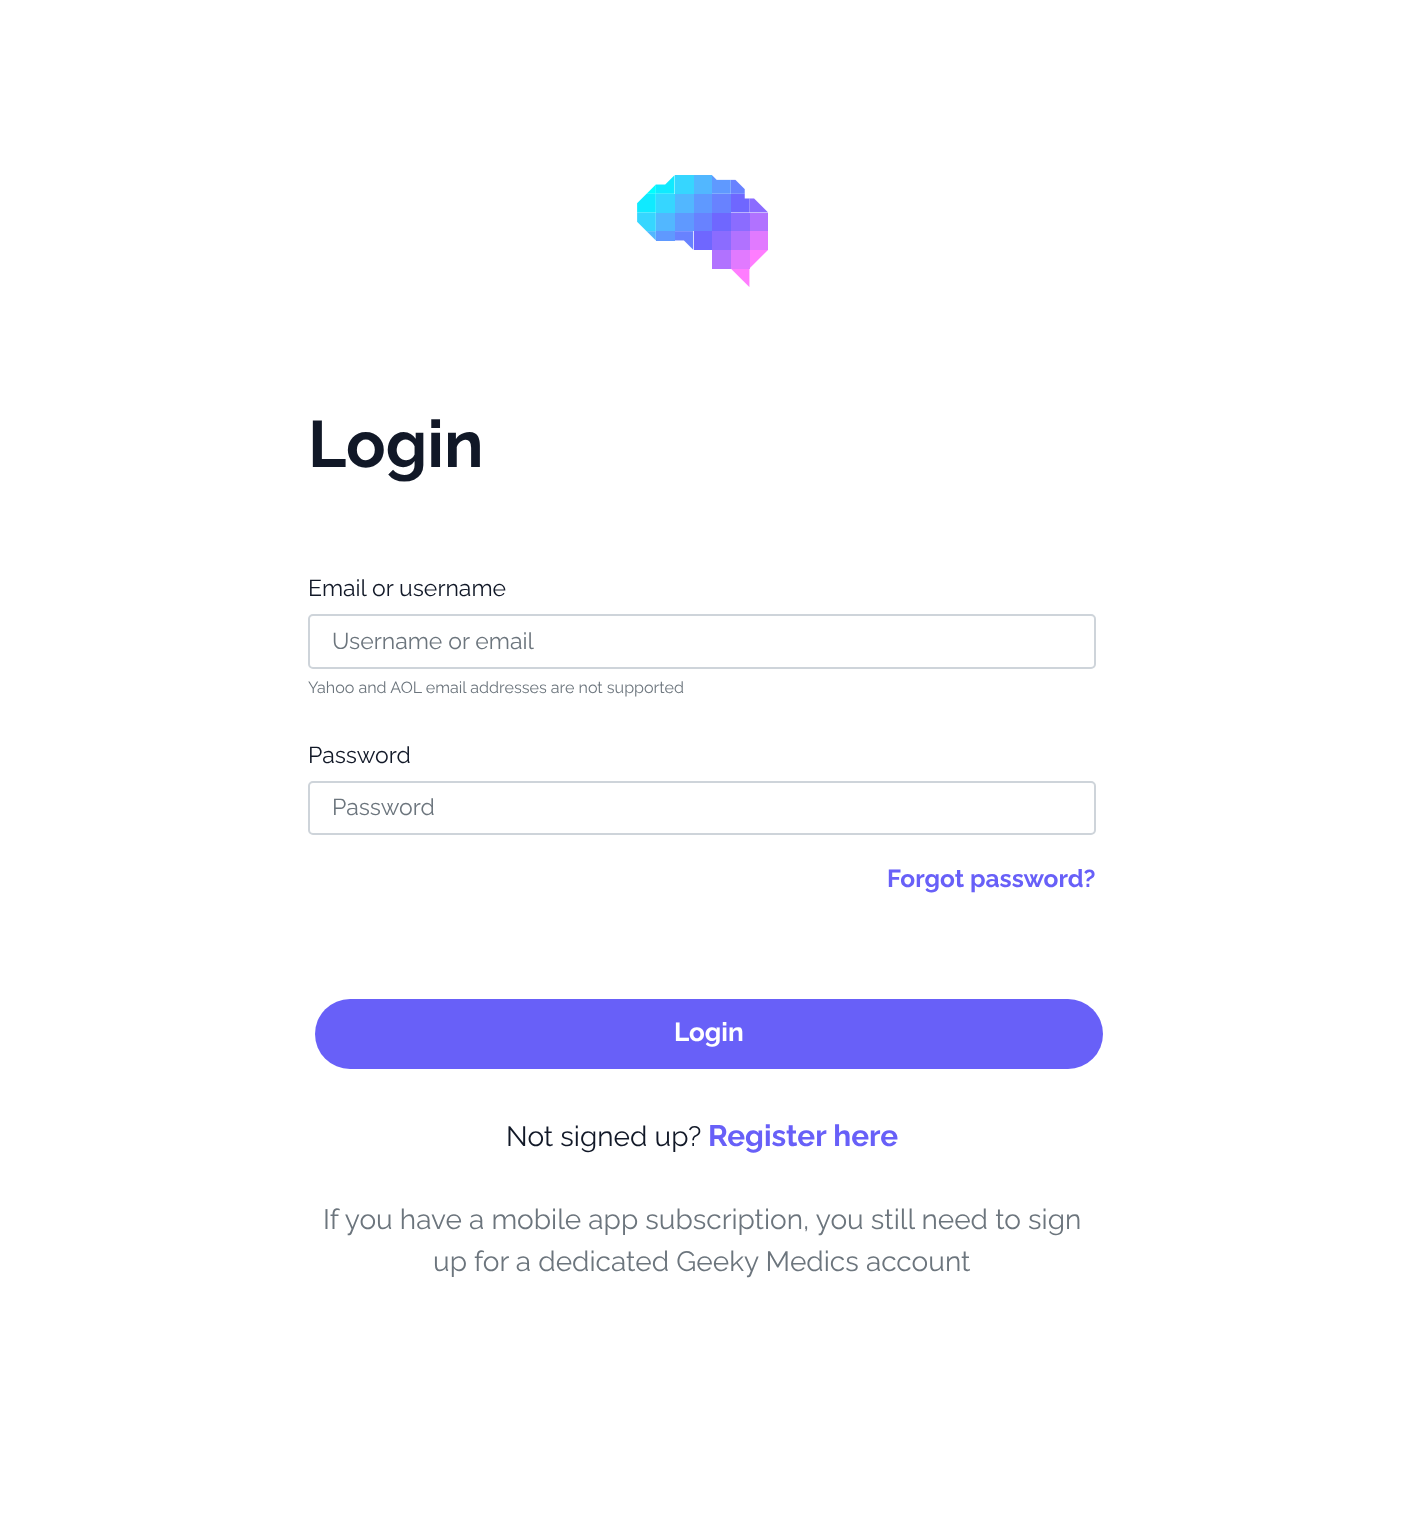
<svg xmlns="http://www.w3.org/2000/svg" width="1402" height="1536">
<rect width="100%" height="100%" fill="#fff"/>
<image x="637" y="175" width="131" height="112" href="media/1.png"/>
<text x="308" y="467" style="font-family:Raleway;font-size:65.5px;font-weight:100;fill:#111827">Login</text>
<text x="308" y="596" style="font-family:'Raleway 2';font-size:23px;font-weight:100;fill:#111827">Email or username</text>
<rect x="309" y="615" width="786" height="53" rx="4" fill="none" stroke="#ced4da" stroke-width="2"/>
<text x="332" y="649" style="font-family:'Raleway 2';font-size:23px;font-weight:100;fill:#6c757d">Username or email</text>
<text x="308" y="693" style="font-family:'Raleway 2';font-size:16.1px;font-weight:100;fill:#6c757d">Yahoo and AOL email addresses are not supported</text>
<text x="308" y="763" style="font-family:'Raleway 2';font-size:23px;font-weight:100;fill:#111827">Password</text>
<rect x="309" y="782" width="786" height="52" rx="4" fill="none" stroke="#ced4da" stroke-width="2"/>
<text x="332" y="815" style="font-family:'Raleway 2';font-size:23px;font-weight:100;fill:#6c757d">Password</text>
<text x="887" y="887" style="font-family:Raleway;font-size:24.5px;font-weight:100;fill:#6860f8">Forgot password?</text>
<rect x="315" y="999" width="788" height="70" rx="35" fill="#6860f8"/>
<text x="674" y="1041" style="font-family:Raleway;font-size:26px;font-weight:100;fill:#fff">Login</text>
<text x="506" y="1146" style="font-family:'Raleway 2';font-size:28px;font-weight:100;fill:#111827">Not signed up?</text>
<text x="708" y="1146" style="font-family:Raleway;font-size:29.75px;font-weight:100;fill:#6860f8">Register here</text>
<text x="323" y="1229" style="font-family:'Raleway 2';font-size:28px;font-weight:100;fill:#6c757d">If you have a mobile app subscription, you still need to sign</text>
<text x="433" y="1271" style="font-family:'Raleway 2';font-size:28px;font-weight:100;fill:#6c757d">up for a dedicated Geeky Medics account</text>
</svg>
